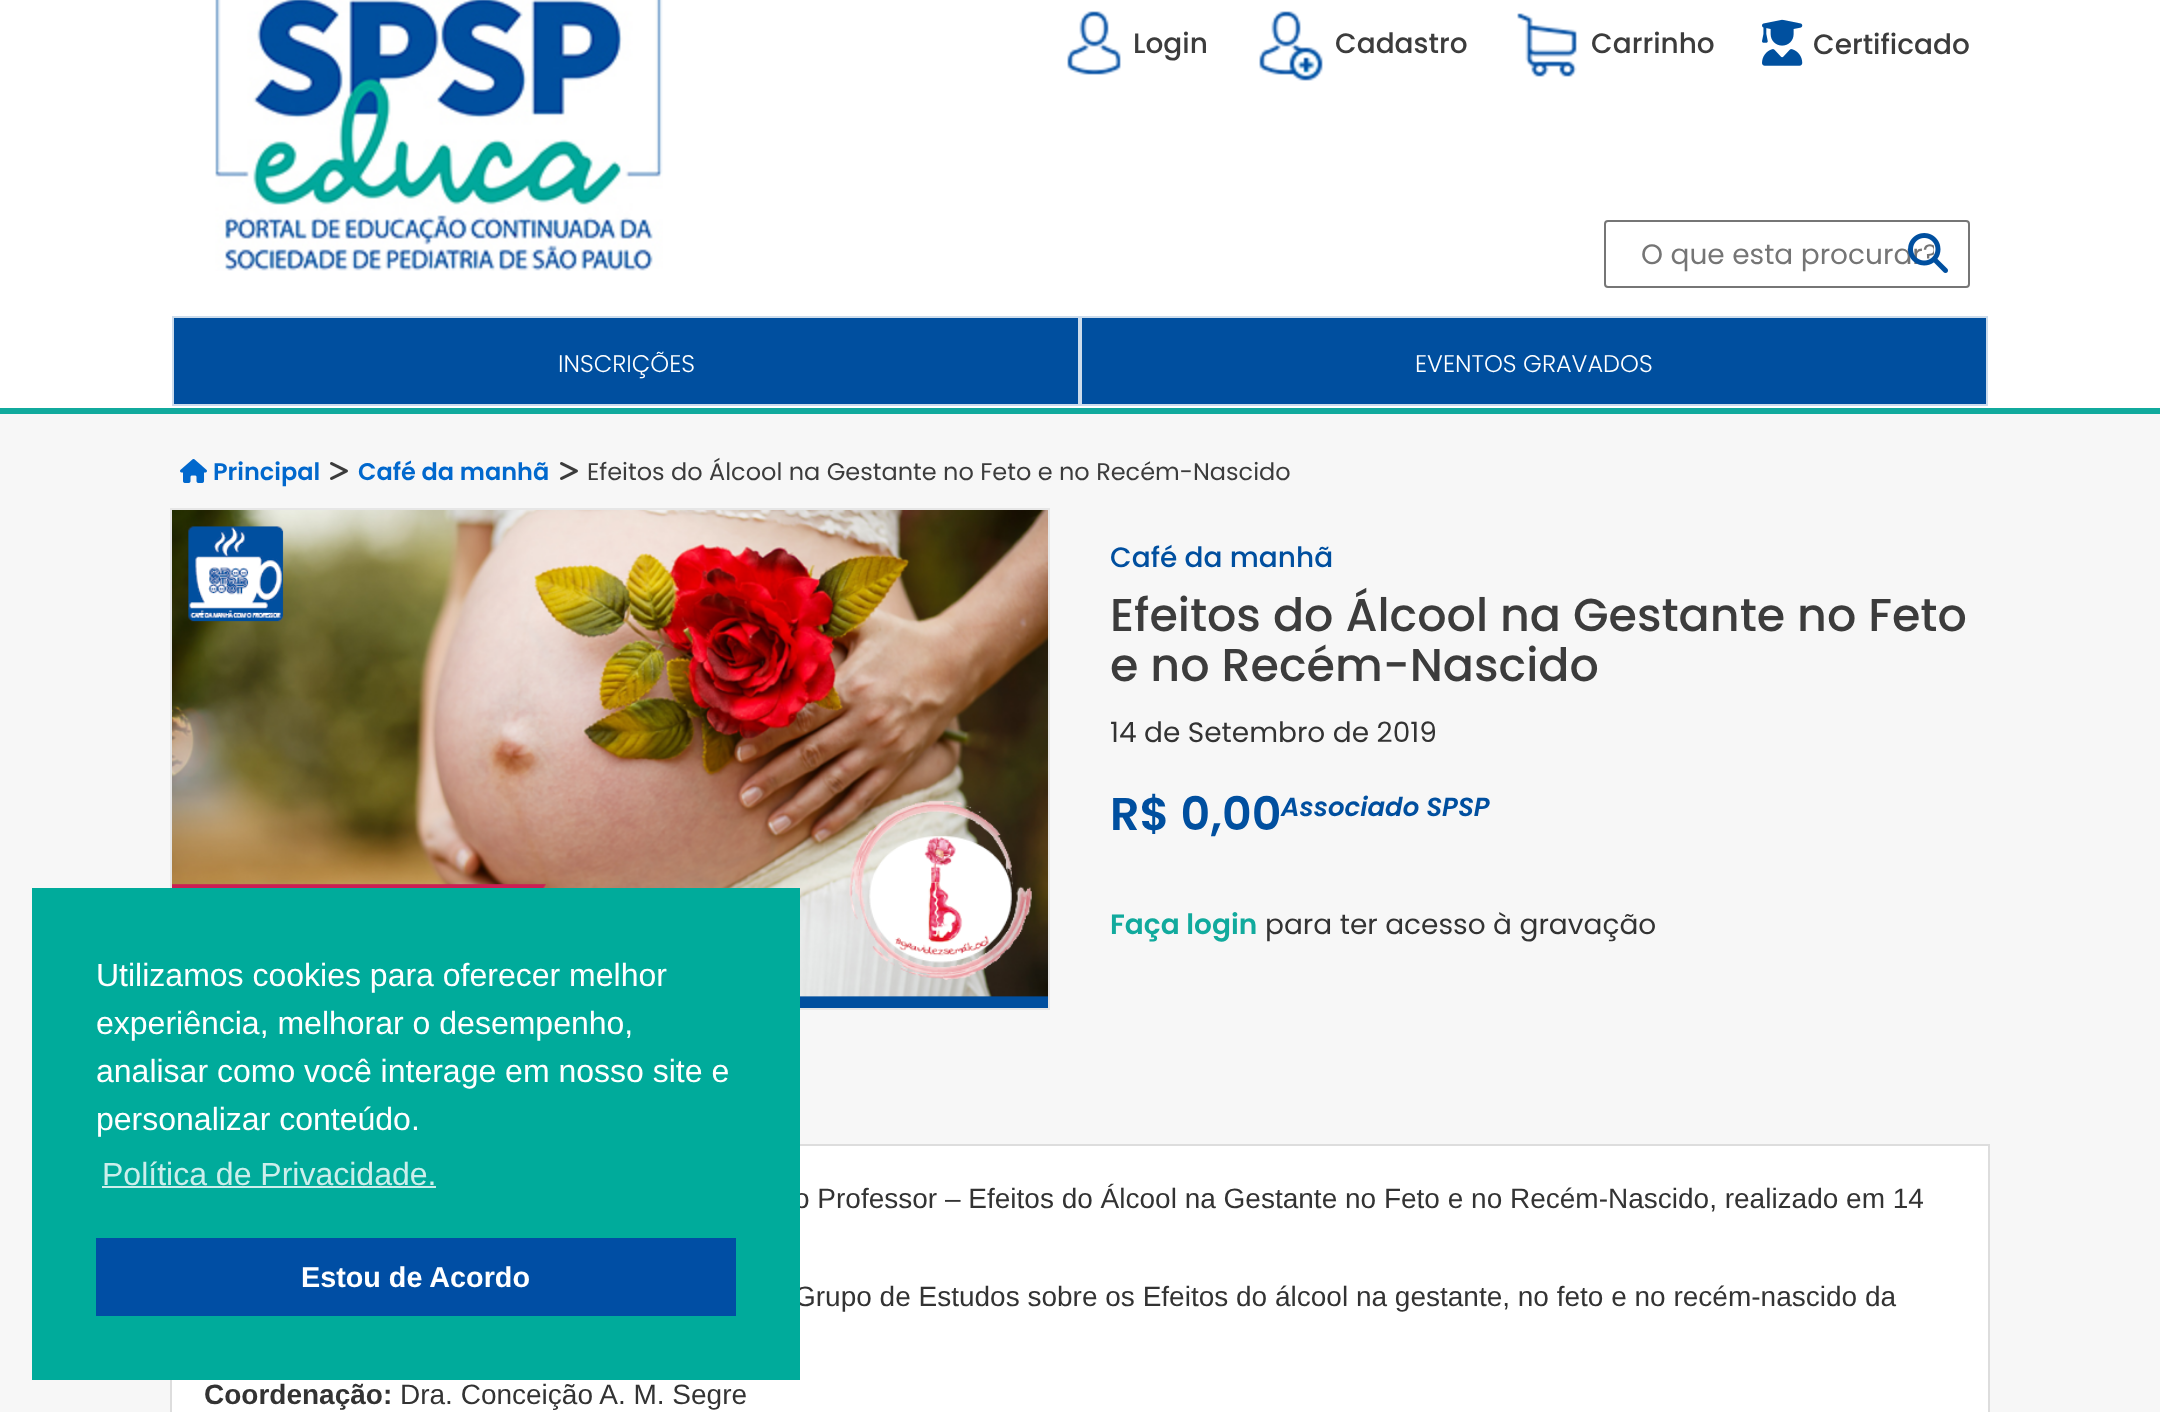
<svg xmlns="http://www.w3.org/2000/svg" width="2160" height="1412">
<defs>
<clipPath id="clip1"><rect x="1640" y="234" width="294" height="42"/></clipPath>
</defs>
<rect width="100%" height="100%" fill="#f7f7f7"/>
<rect width="2160" height="408" fill="#fff"/>
<image x="215" y="0" width="448" height="271" href="media/1.png"/>
<image x="1067" y="11" width="54" height="64" href="media/2.png"/>
<text x="1133" y="53" style="font-family:Poppins;font-size:28px;font-weight:500;fill:#3c3c3c">Login</text>
<image x="1259" y="11" width="64" height="70" href="media/3.png"/>
<text x="1335" y="53" style="font-family:Poppins;font-size:28px;font-weight:500;fill:#3c3c3c">Cadastro</text>
<image x="1517" y="13" width="60" height="64" href="media/4.png"/>
<text x="1591" y="53" style="font-family:Poppins;font-size:28px;font-weight:500;fill:#3c3c3c">Carrinho</text>
<image x="1762" y="19" width="41" height="47" href="media/5.png"/>
<text x="1813" y="54" style="font-family:Poppins;font-size:28px;font-weight:500;fill:#3c3c3c">Certificado</text>
<rect x="1605" y="221" width="364" height="66" rx="3" fill="none" stroke="#767676" stroke-width="2"/>
<g clip-path="url(#clip1)">
<text x="1641" y="264" style="font-family:Poppins;font-size:28px;fill:#757575">O que esta procurar?</text>
</g>
<image x="1908" y="233" width="40" height="40" href="media/6.png"/>
<rect x="173" y="317" width="906" height="88" fill="#004f9f" stroke="#ccdcec" stroke-width="2"/>
<text x="558" y="372" style="font-family:Poppins;font-size:24px;font-weight:300;fill:#fff">INSCRIÇÕES</text>
<rect x="1081" y="317" width="906" height="88" fill="#004f9f" stroke="#ccdcec" stroke-width="2"/>
<text x="1415" y="372" style="font-family:Poppins;font-size:24px;font-weight:300;fill:#fff">EVENTOS GRAVADOS</text>
<rect y="408" width="2160" height="6" fill="#11aa9d"/>
<image x="180" y="459" width="27" height="24" href="media/7.png"/>
<text x="213" y="480" style="font-family:Poppins;font-size:24px;font-weight:600;fill:#0168cd">Principal</text>
<image x="330" y="462" width="18" height="18" href="media/8.png"/>
<text x="358" y="480" style="font-family:Poppins;font-size:24px;font-weight:600;fill:#0168cd">Café da manhã</text>
<image x="560" y="462" width="18" height="18" href="media/8.png"/>
<text x="587" y="480" style="font-family:Poppins;font-size:24px;fill:#3c3c3c">Efeitos do Álcool na Gestante no Feto e no Recém-Nascido</text>
<rect x="171" y="509" width="878" height="500" fill="none" stroke="#e6e6e6" stroke-width="2"/>
<image x="172" y="510" width="876" height="498" href="media/9.png"/>
<text x="1110" y="567" style="font-family:Poppins;font-size:28px;font-weight:500;fill:#004f9f">Café da manhã</text>
<text x="1110" y="631" style="font-family:Poppins;font-size:46px;font-weight:500;fill:#3c3c3c">Efeitos do Álcool na Gestante no Feto</text>
<text x="1110" y="681" style="font-family:Poppins;font-size:46px;font-weight:500;fill:#3c3c3c">e no Recém-Nascido</text>
<text x="1110" y="742" style="font-family:Poppins;font-size:28px;fill:#333">14 de Setembro de 2019</text>
<text x="1110" y="830" style="font-family:Poppins;font-size:46px;font-weight:600;fill:#004f9f">R$ 0,00</text>
<text x="1281" y="816" style="font-family:Poppins;font-size:26px;font-weight:600;font-style:italic;fill:#004f9f">Associado SPSP</text>
<text x="1110" y="934" style="font-family:Poppins;font-size:28px;font-weight:600;fill:#11aa9d">Faça login</text>
<text x="1265" y="934" style="font-family:Poppins;font-size:28px;fill:#333">para ter acesso à gravação</text>
<rect x="800" y="1144" width="1190" height="2" fill="#ddd"/>
<rect x="172" y="1146" width="1816" height="266" fill="#fff"/>
<rect x="1988" y="1146" width="2" height="266" fill="#ddd"/>
<rect x="170" y="1380" width="2" height="32" fill="#ddd"/>
<text x="794" y="1208" style="font-family:Liberation Sans;font-size:28px;fill:#333">o Professor – Efeitos do Álcool na Gestante no Feto e no Recém-Nascido, realizado em 14</text>
<text x="794" y="1306" style="font-family:Liberation Sans;font-size:28px;fill:#333">Grupo de Estudos sobre os Efeitos do álcool na gestante, no feto e no recém-nascido da</text>
<text x="204" y="1404" style="font-family:Liberation Sans;font-size:28px;font-weight:bold;fill:#333">Coordenação:</text>
<text x="400" y="1404" style="font-family:Liberation Sans;font-size:28px;fill:#333">Dra. Conceição A. M. Segre</text>
<rect x="32" y="888" width="768" height="492" fill="#00ab9b"/>
<text x="96" y="986" style="font-family:Liberation Sans;font-size:32px;fill:#fff">Utilizamos cookies para oferecer melhor</text>
<text x="96" y="1034" style="font-family:Liberation Sans;font-size:32px;fill:#fff">experiência, melhorar o desempenho,</text>
<text x="96" y="1082" style="font-family:Liberation Sans;font-size:32px;fill:#fff">analisar como você interage em nosso site e</text>
<text x="96" y="1130" style="font-family:Liberation Sans;font-size:32px;fill:#fff">personalizar conteúdo.</text>
<text x="102" y="1185" style="font-family:Liberation Sans;font-size:32px;fill:#cceeeb">Política de Privacidade.</text>
<rect x="102" y="1186" width="334" height="2" fill="#cceeeb"/>
<rect x="96" y="1238" width="640" height="78" fill="#004ea4"/>
<text x="301" y="1287" style="font-family:Liberation Sans;font-size:28.75px;font-weight:bold;fill:#fff">Estou de Acordo</text>
</svg>
